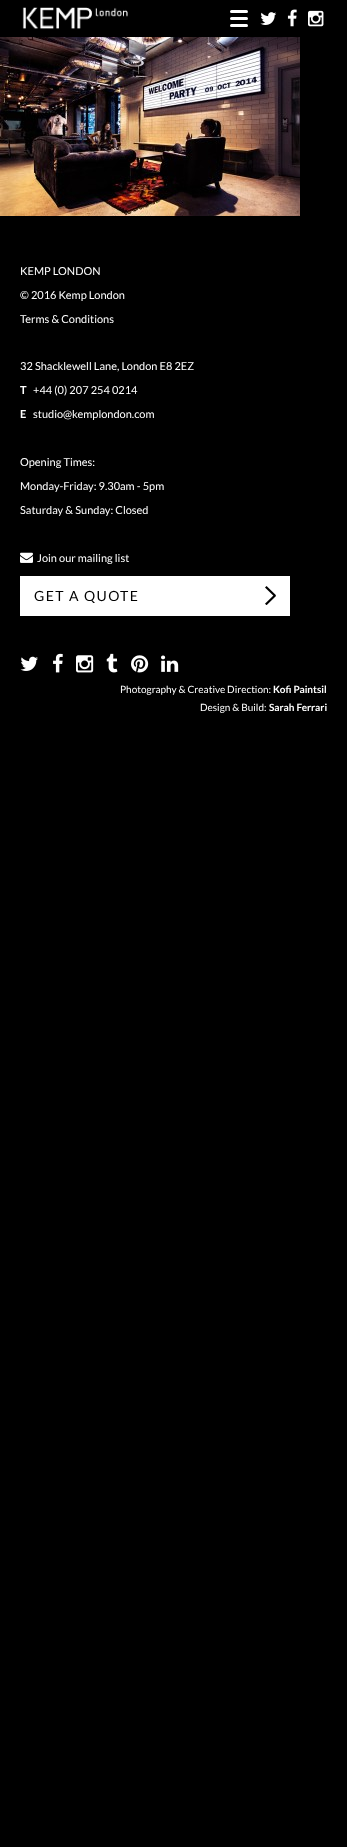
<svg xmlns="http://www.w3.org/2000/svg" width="347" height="1847">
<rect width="100%" height="100%" fill="#000"/>
<image x="22" y="7" width="106" height="22" href="media/1.png"/>
<rect x="230" y="10" width="18" height="3" rx="1.5" fill="#fff"/>
<rect x="230" y="17" width="18" height="3" rx="1.5" fill="#fff"/>
<rect x="230" y="24" width="18" height="3" rx="1.5" fill="#fff"/>
<image x="260" y="12" width="17" height="13" href="media/2.png"/>
<image x="287" y="9" width="10" height="18" href="media/3.png"/>
<image x="308" y="10" width="16" height="17" href="media/4.png"/>
<image x="0" y="37" width="300" height="179" href="media/5.png"/>
<text x="20" y="275" style="font-family:Lato;font-size:11px;fill:#fff">KEMP LONDON</text>
<text x="20" y="299" style="font-family:Lato;font-size:11px;fill:#fff">© 2016 Kemp London</text>
<text x="20" y="323" style="font-family:Lato;font-size:11px;fill:#fff">Terms &amp; Conditions</text>
<text x="20" y="370" style="font-family:Lato;font-size:11px;fill:#fff">32 Shacklewell Lane, London E8 2EZ</text>
<text x="20" y="394" style="font-family:Lato;font-size:11px;font-weight:bold;fill:#fff">T</text>
<text x="33" y="394" style="font-family:Lato;font-size:11px;fill:#fff">+44 (0) 207 254 0214</text>
<text x="20" y="418" style="font-family:Lato;font-size:11px;font-weight:bold;fill:#fff">E</text>
<text x="33" y="418" style="font-family:Lato;font-size:11px;fill:#fff">studio@kemplondon.com</text>
<text x="20" y="466" style="font-family:Lato;font-size:11px;fill:#fff">Opening Times:</text>
<text x="20" y="490" style="font-family:Lato;font-size:11px;fill:#fff">Monday-Friday: 9.30am - 5pm</text>
<text x="20" y="514" style="font-family:Lato;font-size:11px;fill:#fff">Saturday &amp; Sunday: Closed</text>
<image x="20" y="552" width="13" height="11" href="media/6.png"/>
<text x="37" y="562" style="font-family:Lato;font-size:11px;fill:#fff">Join our mailing list</text>
<rect x="20" y="576" width="270" height="40" fill="#fff"/>
<image x="265" y="586" width="11" height="19" href="media/7.png"/>
<text x="34" y="601" style="font-family:Lato;font-size:14px;letter-spacing:1.4px;fill:#000">GET A QUOTE</text>
<image x="20" y="656" width="18" height="15" href="media/8.png"/>
<image x="53" y="653" width="10" height="20" href="media/9.png"/>
<image x="76" y="655" width="18" height="18" href="media/10.png"/>
<image x="106" y="653" width="12" height="20" href="media/11.png"/>
<image x="131" y="655" width="18" height="18" href="media/12.png"/>
<image x="161" y="655" width="18" height="17" href="media/13.png"/>
<text x="120" y="693" style="font-family:Lato;font-size:10px;fill:#fff">Photography &amp; Creative Direction:</text>
<text x="273" y="693" style="font-family:Lato;font-size:10px;font-weight:bold;fill:#fff">Kofi Paintsil</text>
<text x="200" y="711" style="font-family:Lato;font-size:10px;fill:#fff">Design &amp; Build:</text>
<text x="269" y="711" style="font-family:Lato;font-size:10px;font-weight:bold;fill:#fff">Sarah Ferrari</text>
</svg>
